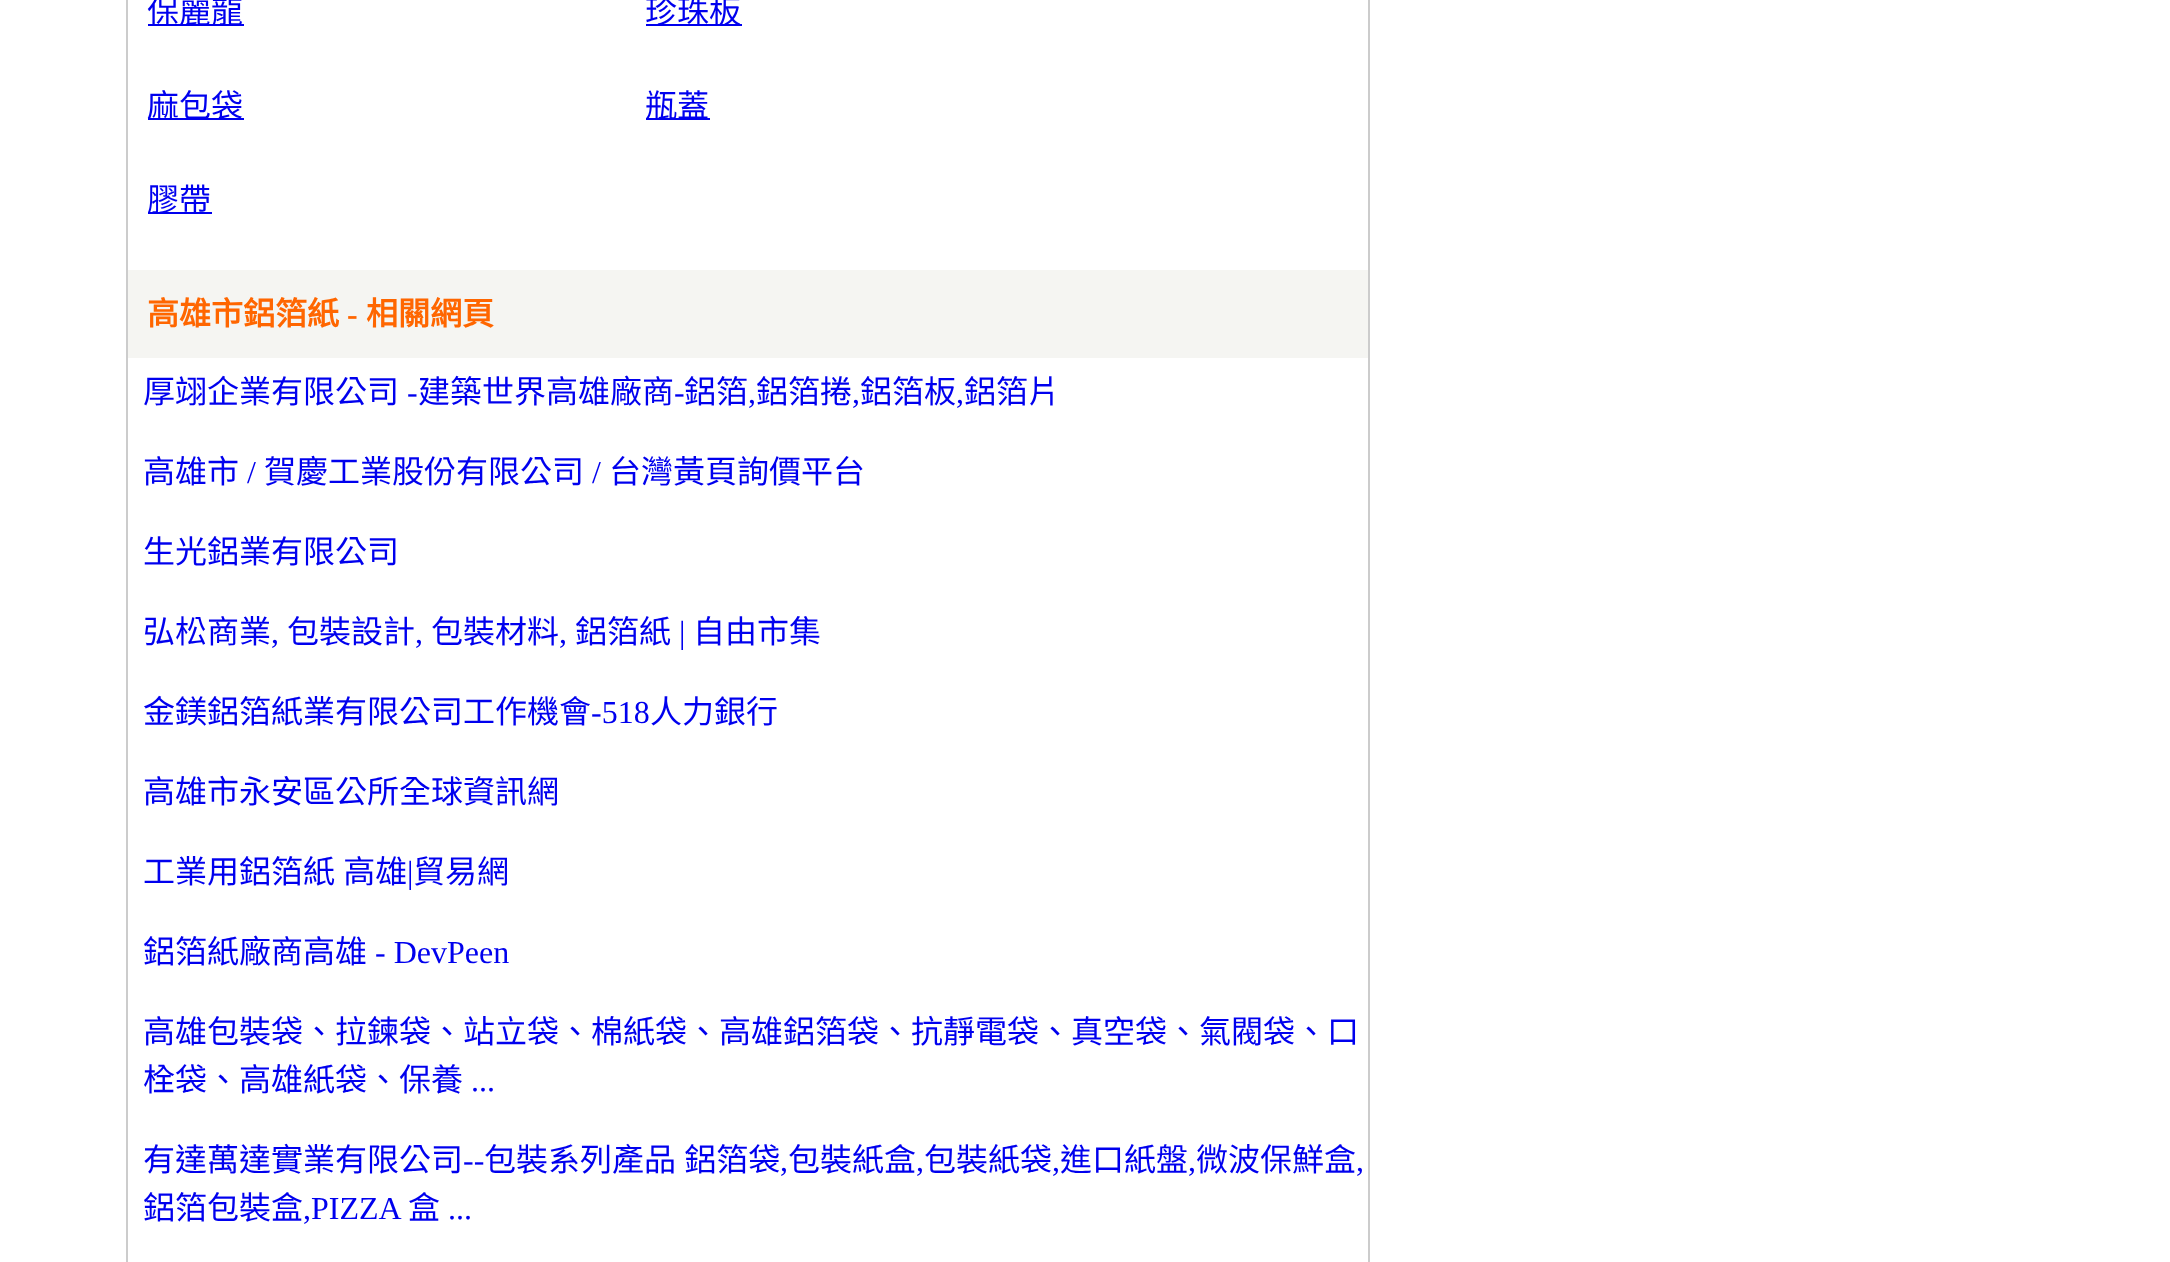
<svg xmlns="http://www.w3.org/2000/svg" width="2170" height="1262">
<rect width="100%" height="100%" fill="#fff"/>
<rect x="127" y="-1" width="1242" height="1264" fill="none" stroke="#ccc" stroke-width="2"/>
<rect x="148" y="24" width="96" height="2" fill="#00e"/>
<text x="147" y="23" style="font-family:Noto Sans CJK TC;font-size:32px;fill:#00e">保麗龍</text>
<rect x="646" y="24" width="96" height="2" fill="#00e"/>
<text x="645" y="23" style="font-family:Noto Sans CJK TC;font-size:32px;fill:#00e">珍珠板</text>
<rect x="148" y="118" width="96" height="2" fill="#00e"/>
<text x="147" y="117" style="font-family:Noto Sans CJK TC;font-size:32px;fill:#00e">麻包袋</text>
<rect x="646" y="118" width="64" height="2" fill="#00e"/>
<text x="645" y="117" style="font-family:Noto Sans CJK TC;font-size:32px;fill:#00e">瓶蓋</text>
<rect x="148" y="212" width="64" height="2" fill="#00e"/>
<text x="147" y="211" style="font-family:Noto Sans CJK TC;font-size:32px;fill:#00e">膠帶</text>
<rect x="128" y="270" width="1240" height="88" fill="#f5f5f2"/>
<text x="147" y="325" style="font-family:Noto Sans CJK TC;font-size:32px;font-weight:bold;fill:#f60">高雄市鋁箔紙</text>
<text x="347" y="325" style="font-family:Liberation Serif;font-size:32px;font-weight:bold;fill:#f60">-</text>
<text x="366" y="325" style="font-family:Noto Sans CJK TC;font-size:32px;font-weight:bold;fill:#f60">相關網頁</text>
<text x="143" y="403" style="font-family:Noto Sans CJK TC;font-size:32px;fill:#00e">厚翊企業有限公司</text>
<text x="407" y="403" style="font-family:Liberation Serif;font-size:32px;fill:#00e">-</text>
<text x="418" y="403" style="font-family:Noto Sans CJK TC;font-size:32px;fill:#00e">建築世界高雄廠商</text>
<text x="674" y="403" style="font-family:Liberation Serif;font-size:32px;fill:#00e">-</text>
<text x="684" y="403" style="font-family:Noto Sans CJK TC;font-size:32px;fill:#00e">鋁箔</text>
<text x="756" y="403" style="font-family:Noto Sans CJK TC;font-size:32px;fill:#00e">鋁箔捲</text>
<text x="860" y="403" style="font-family:Noto Sans CJK TC;font-size:32px;fill:#00e">鋁箔板</text>
<text x="964" y="403" style="font-family:Noto Sans CJK TC;font-size:32px;fill:#00e">鋁箔片</text>
<text x="748" y="403" style="font-family:Liberation Serif;font-size:32px;fill:#00e">,</text>
<text x="852" y="403" style="font-family:Liberation Serif;font-size:32px;fill:#00e">,</text>
<text x="956" y="403" style="font-family:Liberation Serif;font-size:32px;fill:#00e">,</text>
<text x="143" y="483" style="font-family:Noto Sans CJK TC;font-size:32px;fill:#00e">高雄市</text>
<text x="247" y="483" style="font-family:Liberation Serif;font-size:32px;fill:#00e">/</text>
<text x="264" y="483" style="font-family:Noto Sans CJK TC;font-size:32px;fill:#00e">賀慶工業股份有限公司</text>
<text x="592" y="483" style="font-family:Liberation Serif;font-size:32px;fill:#00e">/</text>
<text x="609" y="483" style="font-family:Noto Sans CJK TC;font-size:32px;fill:#00e">台灣黃頁詢價平台</text>
<text x="143" y="563" style="font-family:Noto Sans CJK TC;font-size:32px;fill:#00e">生光鋁業有限公司</text>
<text x="143" y="643" style="font-family:Noto Sans CJK TC;font-size:32px;fill:#00e">弘松商業</text>
<text x="271" y="643" style="font-family:Liberation Serif;font-size:32px;fill:#00e">,</text>
<text x="287" y="643" style="font-family:Noto Sans CJK TC;font-size:32px;fill:#00e">包裝設計</text>
<text x="415" y="643" style="font-family:Liberation Serif;font-size:32px;fill:#00e">,</text>
<text x="431" y="643" style="font-family:Noto Sans CJK TC;font-size:32px;fill:#00e">包裝材料</text>
<text x="559" y="643" style="font-family:Liberation Serif;font-size:32px;fill:#00e">,</text>
<text x="575" y="643" style="font-family:Noto Sans CJK TC;font-size:32px;fill:#00e">鋁箔紙</text>
<text x="679" y="643" style="font-family:Liberation Serif;font-size:32px;fill:#00e">|</text>
<text x="693" y="643" style="font-family:Noto Sans CJK TC;font-size:32px;fill:#00e">自由市集</text>
<text x="143" y="723" style="font-family:Noto Sans CJK TC;font-size:32px;fill:#00e">金鎂鋁箔紙業有限公司工作機會</text>
<text x="591" y="723" style="font-family:Liberation Serif;font-size:32px;fill:#00e">-518</text>
<text x="650" y="723" style="font-family:Noto Sans CJK TC;font-size:32px;fill:#00e">人力銀行</text>
<text x="143" y="803" style="font-family:Noto Sans CJK TC;font-size:32px;fill:#00e">高雄市永安區公所全球資訊網</text>
<text x="143" y="883" word-spacing="1" style="font-family:Noto Sans CJK TC;font-size:32px;fill:#00e">工業用鋁箔紙 高雄</text>
<text x="407" y="883" style="font-family:Liberation Serif;font-size:32px;fill:#00e">|</text>
<text x="413" y="883" style="font-family:Noto Sans CJK TC;font-size:32px;fill:#00e">貿易網</text>
<text x="143" y="963" style="font-family:Noto Sans CJK TC;font-size:32px;fill:#00e">鋁箔紙廠商高雄</text>
<text x="375" y="963" style="font-family:Liberation Serif;font-size:32px;fill:#00e">- DevPeen</text>
<text x="143" y="1043" style="font-family:Noto Sans CJK TC;font-size:32px;fill:#00e">高雄包裝袋、拉鍊袋、站立袋、棉紙袋、高雄鋁箔袋、抗靜電袋、真空袋、氣閥袋、口</text>
<text x="143" y="1091" style="font-family:Noto Sans CJK TC;font-size:32px;fill:#00e">栓袋、高雄紙袋、保養</text>
<text x="471" y="1091" style="font-family:Liberation Serif;font-size:32px;fill:#00e">...</text>
<text x="143" y="1171" style="font-family:Noto Sans CJK TC;font-size:32px;fill:#00e">有達萬達實業有限公司</text>
<text x="463" y="1171" style="font-family:Liberation Serif;font-size:32px;fill:#00e">--</text>
<text x="484" y="1171" word-spacing="1" style="font-family:Noto Sans CJK TC;font-size:32px;fill:#00e">包裝系列產品 鋁箔袋</text>
<text x="788" y="1171" style="font-family:Noto Sans CJK TC;font-size:32px;fill:#00e">包裝紙盒</text>
<text x="924" y="1171" style="font-family:Noto Sans CJK TC;font-size:32px;fill:#00e">包裝紙袋</text>
<text x="1060" y="1171" style="font-family:Noto Sans CJK TC;font-size:32px;fill:#00e">進口紙盤</text>
<text x="1196" y="1171" style="font-family:Noto Sans CJK TC;font-size:32px;fill:#00e">微波保鮮盒</text>
<text x="780" y="1171" style="font-family:Liberation Serif;font-size:32px;fill:#00e">,</text>
<text x="916" y="1171" style="font-family:Liberation Serif;font-size:32px;fill:#00e">,</text>
<text x="1052" y="1171" style="font-family:Liberation Serif;font-size:32px;fill:#00e">,</text>
<text x="1188" y="1171" style="font-family:Liberation Serif;font-size:32px;fill:#00e">,</text>
<text x="1356" y="1171" style="font-family:Liberation Serif;font-size:32px;fill:#00e">,</text>
<text x="143" y="1219" style="font-family:Noto Sans CJK TC;font-size:32px;fill:#00e">鋁箔包裝盒</text>
<text x="303" y="1219" style="font-family:Liberation Serif;font-size:32px;fill:#00e">,PIZZA</text>
<text x="408" y="1219" style="font-family:Noto Sans CJK TC;font-size:32px;fill:#00e">盒</text>
<text x="448" y="1219" style="font-family:Liberation Serif;font-size:32px;fill:#00e">...</text>
</svg>
